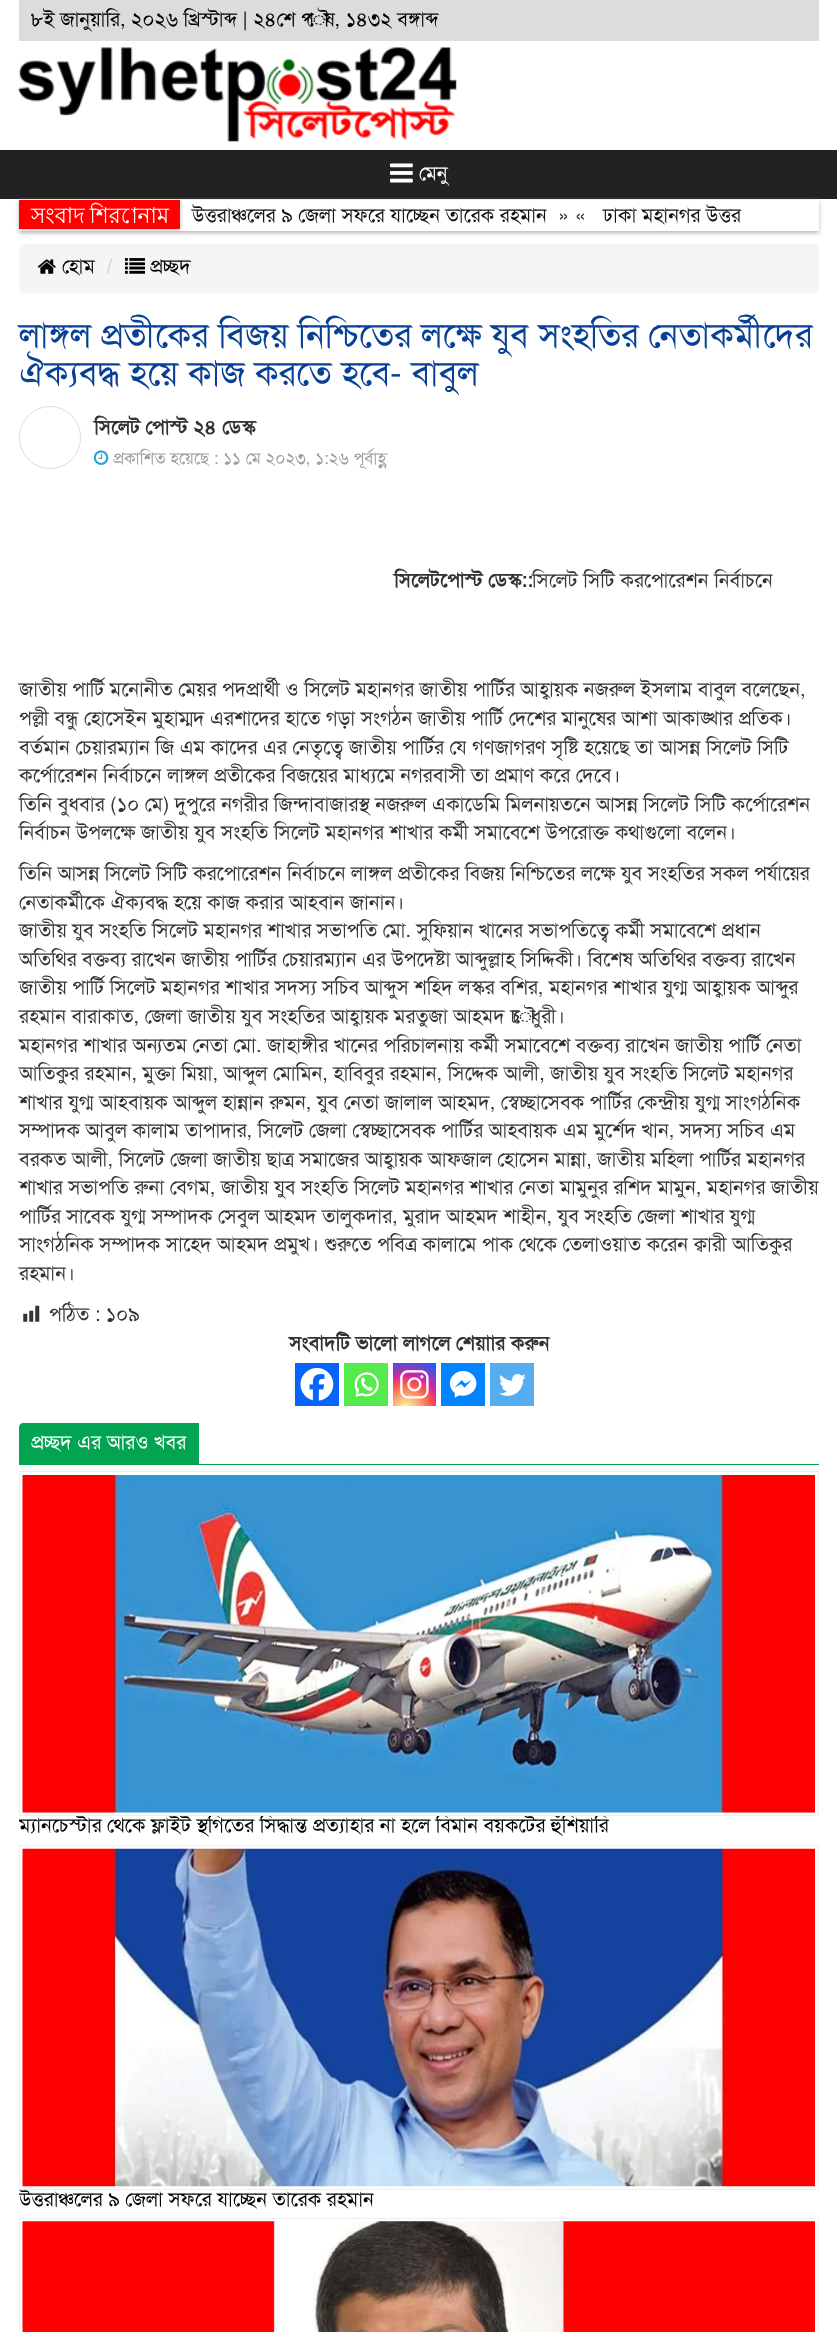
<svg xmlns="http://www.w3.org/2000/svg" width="837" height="2332">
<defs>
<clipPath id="clip1"><rect x="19" y="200" width="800" height="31" rx="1"/></clipPath>
<radialGradient id="g1" gradientUnits="userSpaceOnUse" cx="406" cy="1409" r="56"><stop offset="0" stop-color="#fdf497"/><stop offset="0.05" stop-color="#fdf497"/><stop offset="0.45" stop-color="#fd5949"/><stop offset="0.6" stop-color="#d6249f"/><stop offset="0.9" stop-color="#285aeb"/></radialGradient>
<clipPath id="clip2"><rect x="19" y="1816" width="800" height="29"/></clipPath>
<clipPath id="clip3"><rect x="19" y="2190" width="800" height="28"/></clipPath>
</defs>
<rect width="100%" height="100%" fill="#fff"/>
<rect x="19" width="800" height="41" fill="#dcdcdc"/>
<text x="31" y="26" style="font-family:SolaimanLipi;font-size:20px;fill:#000">৮ই জানুয়ারি, ২০২৬ খ্রিস্টাব্দ | ২৪শে পৌষ, ১৪৩২ বঙ্গাব্দ</text>
<image x="18" y="47" width="439" height="95" href="media/1.png"/>
<rect y="150" width="837" height="49" fill="#222"/>
<image x="390" y="163" width="23" height="20" href="media/2.png"/>
<text x="419" y="180" style="font-family:SolaimanLipi;font-size:20px;fill:#fff">মেনু</text>
<rect x="19" y="201" width="800" height="32" rx="1" fill="#b5b5b5" filter="blur(2px)"/>
<rect x="19" y="200" width="800" height="31" rx="1" fill="#fff"/>
<g clip-path="url(#clip1)">
<rect x="19" y="201" width="161" height="29" fill="#b5b5b5" filter="blur(2px)"/>
</g>
<path d="M20 200h160v29h-161v-28c0-.5 .5-1 1-1z" fill="#f00"/>
<text x="31" y="223" word-spacing="-1" style="font-family:Lohit Bengali;font-size:21.75px;fill:#fff">সংবাদ শিরোনাম</text>
<text x="192" y="222" style="font-family:SolaimanLipi;font-size:20px;fill:#111">উত্তরাঞ্চলের ৯ জেলা সফরে যাচ্ছেন তারেক রহমান</text>
<text x="558" y="222" style="font-family:SolaimanLipi;font-size:20px;fill:#333">» «</text>
<text x="603" y="222" style="font-family:SolaimanLipi;font-size:20px;fill:#111">ঢাকা মহানগর উত্তর</text>
<rect x="19" y="244" width="800" height="49" rx="5" fill="#f5f5f5"/>
<image x="37" y="259" width="19" height="15" href="media/3.png"/>
<text x="62" y="273" style="font-family:SolaimanLipi;font-size:20px;fill:#000">হোম</text>
<text x="106" y="273" style="font-family:SolaimanLipi;font-size:20px;fill:#ccc">/</text>
<image x="125" y="258" width="20" height="16" href="media/4.png"/>
<text x="150" y="273" style="font-family:SolaimanLipi;font-size:20px;fill:#000">প্রচ্ছদ</text>
<text x="19" y="347" style="font-family:SolaimanLipi;font-size:35px;fill:#074097">লাঙ্গল প্রতীকের বিজয় নিশ্চিতের লক্ষে যুব সংহতির নেতাকর্মীদের</text>
<text x="19" y="385" style="font-family:SolaimanLipi;font-size:35px;fill:#074097">ঐক্যবদ্ধ হয়ে কাজ করতে হবে- বাবুল</text>
<rect x="19.5" y="406.5" width="61" height="62" rx="30.5" fill="none" stroke="#ddd"/>
<text x="94" y="434" style="font-family:SolaimanLipi;font-size:20px;font-weight:bold;fill:#333">সিলেট পোস্ট ২৪ ডেস্ক</text>
<image x="93" y="450" width="16" height="15" href="media/5.png"/>
<text x="113" y="464" style="font-family:SolaimanLipi;font-size:17px;fill:#9e9e9e">প্রকাশিত হয়েছে : ১১ মে ২০২৩, ১:২৬ পূর্বাহ্ণ</text>
<text x="394" y="587" style="font-family:SolaimanLipi;font-size:20px;font-weight:bold;fill:#333">সিলেটপোস্ট ডেস্ক::</text>
<text x="532" y="587" style="font-family:SolaimanLipi;font-size:20px;fill:#333">সিলেট সিটি করপোরেশন নির্বাচনে</text>
<text x="19" y="696" style="font-family:SolaimanLipi;font-size:20px;fill:#333">জাতীয় পার্টি মনোনীত মেয়র পদপ্রার্থী ও সিলেট মহানগর জাতীয় পার্টির আহ্বায়ক নজরুল ইসলাম বাবুল বলেছেন,</text>
<text x="19" y="725" style="font-family:SolaimanLipi;font-size:20px;fill:#333">পল্লী বন্ধু হোসেইন মুহাম্মদ এরশাদের হাতে গড়া সংগঠন জাতীয় পার্টি দেশের মানুষের আশা আকাঙ্খার প্রতিক।</text>
<text x="19" y="754" style="font-family:SolaimanLipi;font-size:20px;fill:#333">বর্তমান চেয়ারম্যান জি এম কাদের এর নেতৃত্বে জাতীয় পার্টির যে গণজাগরণ সৃষ্টি হয়েছে তা আসন্ন সিলেট সিটি</text>
<text x="19" y="782" style="font-family:SolaimanLipi;font-size:20px;fill:#333">কর্পোরেশন নির্বাচনে লাঙ্গল প্রতীকের বিজয়ের মাধ্যমে নগরবাসী তা প্রমাণ করে দেবে।</text>
<text x="19" y="811" style="font-family:SolaimanLipi;font-size:20px;fill:#333">তিনি বুধবার (১০ মে) দুপুরে নগরীর জিন্দাবাজারস্থ নজরুল একাডেমি মিলনায়তনে আসন্ন সিলেট সিটি কর্পোরেশন</text>
<text x="19" y="839" style="font-family:SolaimanLipi;font-size:20px;fill:#333">নির্বাচন উপলক্ষে জাতীয় যুব সংহতি সিলেট মহানগর শাখার কর্মী সমাবেশে উপরোক্ত কথাগুলো বলেন।</text>
<text x="19" y="880" style="font-family:SolaimanLipi;font-size:20px;fill:#333">তিনি আসন্ন সিলেট সিটি করপোরেশন নির্বাচনে লাঙ্গল প্রতীকের বিজয় নিশ্চিতের লক্ষে যুব সংহতির সকল পর্যায়ের</text>
<text x="19" y="909" style="font-family:SolaimanLipi;font-size:20px;fill:#333">নেতাকর্মীকে ঐক্যবদ্ধ হয়ে কাজ করার আহবান জানান।</text>
<text x="19" y="937" style="font-family:SolaimanLipi;font-size:20px;fill:#333">জাতীয় যুব সংহতি সিলেট মহানগর শাখার সভাপতি মো. সুফিয়ান খানের সভাপতিত্বে কর্মী সমাবেশে প্রধান</text>
<text x="19" y="966" style="font-family:SolaimanLipi;font-size:20px;fill:#333">অতিথির বক্তব্য রাখেন জাতীয় পার্টির চেয়ারম্যান এর উপদেষ্টা আব্দুল্লাহ সিদ্দিকী। বিশেষ অতিথির বক্তব্য রাখেন</text>
<text x="19" y="994" style="font-family:SolaimanLipi;font-size:20px;fill:#333">জাতীয় পার্টি সিলেট মহানগর শাখার সদস্য সচিব আব্দুস শহিদ লস্কর বশির, মহানগর শাখার যুগ্ম আহ্বায়ক আব্দুর</text>
<text x="19" y="1023" style="font-family:SolaimanLipi;font-size:20px;fill:#333">রহমান বারাকাত, জেলা জাতীয় যুব সংহতির আহ্বায়ক মরতুজা আহমদ চৌধুরী।</text>
<text x="19" y="1052" style="font-family:SolaimanLipi;font-size:20px;fill:#333">মহানগর শাখার অন্যতম নেতা মো. জাহাঙ্গীর খানের পরিচালনায় কর্মী সমাবেশে বক্তব্য রাখেন জাতীয় পার্টি নেতা</text>
<text x="19" y="1080" style="font-family:SolaimanLipi;font-size:20px;fill:#333">আতিকুর রহমান, মুক্তা মিয়া, আব্দুল মোমিন, হাবিবুর রহমান, সিদ্দেক আলী, জাতীয় যুব সংহতি সিলেট মহানগর</text>
<text x="19" y="1109" style="font-family:SolaimanLipi;font-size:20px;fill:#333">শাখার যুগ্ম আহবায়ক আব্দুল হান্নান রুমন, যুব নেতা জালাল আহমদ, স্বেচ্ছাসেবক পার্টির কেন্দ্রীয় যুগ্ম সাংগঠনিক</text>
<text x="19" y="1137" style="font-family:SolaimanLipi;font-size:20px;fill:#333">সম্পাদক আবুল কালাম তাপাদার, সিলেট জেলা স্বেচ্ছাসেবক পার্টির আহবায়ক এম মুর্শেদ খান, সদস্য সচিব এম</text>
<text x="19" y="1166" style="font-family:SolaimanLipi;font-size:20px;fill:#333">বরকত আলী, সিলেট জেলা জাতীয় ছাত্র সমাজের আহ্বায়ক আফজাল হোসেন মান্না, জাতীয় মহিলা পার্টির মহানগর</text>
<text x="19" y="1194" style="font-family:SolaimanLipi;font-size:20px;fill:#333">শাখার সভাপতি রুনা বেগম, জাতীয় যুব সংহতি সিলেট মহানগর শাখার নেতা মামুনুর রশিদ মামুন, মহানগর জাতীয়</text>
<text x="19" y="1223" style="font-family:SolaimanLipi;font-size:20px;fill:#333">পার্টির সাবেক যুগ্ম সম্পাদক সেবুল আহমদ তালুকদার, মুরাদ আহমদ শাহীন, যুব সংহতি জেলা শাখার যুগ্ম</text>
<text x="19" y="1251" style="font-family:SolaimanLipi;font-size:20px;fill:#333">সাংগঠনিক সম্পাদক সাহেদ আহমদ প্রমুখ। শুরুতে পবিত্র কালামে পাক থেকে তেলাওয়াত করেন ক্বারী আতিকুর</text>
<text x="19" y="1280" style="font-family:SolaimanLipi;font-size:20px;fill:#333">রহমান।</text>
<image x="23" y="1305" width="17" height="17" href="media/6.png"/>
<text x="49" y="1321" style="font-family:SolaimanLipi;font-size:20px;fill:#333">পঠিত : ১০৯</text>
<text x="289" y="1350" style="font-family:SolaimanLipi;font-size:20px;font-weight:bold;fill:#333">সংবাদটি ভালো লাগলে শেয়াার করুন</text>
<rect x="295" y="1363" width="44" height="43" fill="#0765fe"/>
<image x="300" y="1368" width="34" height="33" href="media/7.png"/>
<rect x="344" y="1363" width="44" height="43" fill="#55eb4c"/>
<image x="354" y="1372" width="25" height="25" href="media/8.png"/>
<rect x="393" y="1363" width="43" height="43" fill="url(#g1)"/>
<image x="400" y="1370" width="29" height="29" href="media/9.png"/>
<rect x="441" y="1363" width="44" height="43" fill="#0084ff"/>
<image x="449" y="1371" width="28" height="27" href="media/10.png"/>
<rect x="490" y="1363" width="44" height="43" fill="#55acee"/>
<image x="499" y="1374" width="27" height="22" href="media/11.png"/>
<rect x="19" y="1464" width="800" height="1" fill="#03a451"/>
<path d="M23 1423h176v41h-180v-37c0-2 2-4 4-4z" fill="#03a451"/>
<text x="31" y="1449" style="font-family:SolaimanLipi;font-size:20px;fill:#fff">প্রচ্ছদ এর আরও খবর</text>
<rect x="19.5" y="1471.5" width="799" height="344" fill="none" stroke="#eee"/>
<image x="22" y="1475" width="793" height="338" href="media/12.png"/>
<g clip-path="url(#clip2)">
<text x="19" y="1832" style="font-family:SolaimanLipi;font-size:20px;fill:#000">ম্যানচেস্টার থেকে ফ্লাইট স্থগিতের সিদ্ধান্ত প্রত্যাহার না হলে বিমান বয়কটের হুঁশিয়ারি</text>
</g>
<rect x="19.5" y="1845.5" width="799" height="344" fill="none" stroke="#eee"/>
<image x="22" y="1848" width="793" height="339" href="media/13.png"/>
<g clip-path="url(#clip3)">
<text x="19" y="2206" style="font-family:SolaimanLipi;font-size:20px;fill:#000">উত্তরাঞ্চলের ৯ জেলা সফরে যাচ্ছেন তারেক রহমান</text>
</g>
<rect x="19.5" y="2218.5" width="799" height="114" fill="none" stroke="#eee"/>
<image x="22" y="2221" width="793" height="111" href="media/14.png"/>
</svg>
